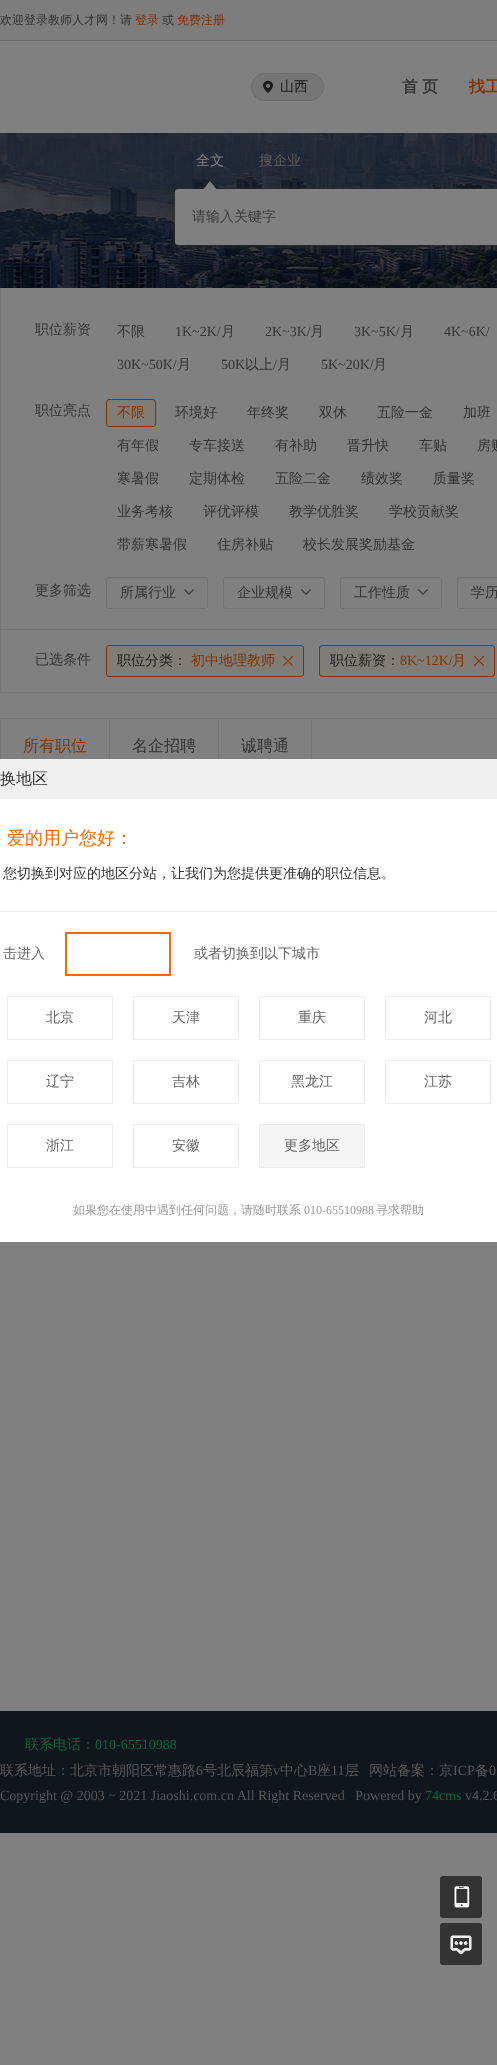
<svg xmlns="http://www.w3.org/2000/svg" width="497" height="2065">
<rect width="100%" height="100%" fill="#808080"/>
<rect width="497" height="40" fill="#7d7d7d"/>
<text x="0" y="24" style="font-family:WenQuanYi Zen Hei;font-size:12px;font-weight:500;fill:#333">欢迎登录教师人才网！请</text>
<text x="135" y="24" style="font-family:WenQuanYi Zen Hei;font-size:12px;font-weight:500;fill:#803300">登录</text>
<text x="162" y="24" style="font-family:WenQuanYi Zen Hei;font-size:12px;font-weight:500;fill:#333">或</text>
<text x="177" y="24" style="font-family:WenQuanYi Zen Hei;font-size:12px;font-weight:500;fill:#803300">免费注册</text>
<rect y="40" width="497" height="1" fill="#6c6c6c"/>
<rect x="251" y="73" width="73" height="28" rx="14" fill="#767676"/>
<rect x="251.5" y="73.5" width="72" height="27" rx="13.5" fill="none" stroke="#3c3c3c24"/>
<image x="263" y="80" width="10" height="13" href="media/1.png"/>
<text x="280" y="91" style="font-family:WenQuanYi Zen Hei;font-size:14px;font-weight:500;fill:#1a1a1a">山西</text>
<text x="402" y="92" style="font-family:WenQuanYi Zen Hei;font-size:16px;font-weight:bold;fill:#333">首</text>
<text x="422" y="92" style="font-family:WenQuanYi Zen Hei;font-size:16px;font-weight:bold;fill:#333">页</text>
<text x="469" y="92" style="font-family:WenQuanYi Zen Hei;font-size:16px;font-weight:bold;fill:#803300">找工</text>
<image x="0" y="133" width="497" height="155" href="media/2.png"/>
<text x="196" y="165" style="font-family:WenQuanYi Zen Hei;font-size:14px;font-weight:500;fill:#808080">全文</text>
<rect x="174" y="189" width="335" height="58" rx="4" fill="#2f2e2ed4" filter="blur(2.5px)"/>
<image x="203" y="181" width="14" height="8" href="media/3.png"/>
<text x="259" y="165" style="font-family:WenQuanYi Zen Hei;font-size:14px;font-weight:500;fill:#5e5e5f">搜企业</text>
<rect x="175" y="189" width="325" height="56" rx="3" fill="#808080"/>
<text x="192" y="221" style="font-family:WenQuanYi Zen Hei;font-size:14px;font-weight:500;fill:#3b3b3b">请输入关键字</text>
<rect y="692" width="497" height="1" fill="#777"/>
<rect y="288" width="1" height="405" fill="#777"/>
<text x="35" y="334" style="font-family:WenQuanYi Zen Hei;font-size:14px;font-weight:500;fill:#333">职位薪资</text>
<text x="117" y="336" style="font-family:WenQuanYi Zen Hei;font-size:14px;font-weight:500;fill:#333">不限</text>
<text x="175" y="336" style="font-family:Liberation Serif;font-size:14px;fill:#333">1K~2K/</text>
<text x="221" y="336" style="font-family:WenQuanYi Zen Hei;font-size:14px;font-weight:500;fill:#333">月</text>
<text x="265" y="336" style="font-family:Liberation Serif;font-size:14px;fill:#333">2K~3K/</text>
<text x="310" y="336" style="font-family:WenQuanYi Zen Hei;font-size:14px;font-weight:500;fill:#333">月</text>
<text x="354" y="336" style="font-family:Liberation Serif;font-size:14px;fill:#333">3K~5K/</text>
<text x="400" y="336" style="font-family:WenQuanYi Zen Hei;font-size:14px;font-weight:500;fill:#333">月</text>
<text x="444" y="336" style="font-family:Liberation Serif;font-size:14px;fill:#333">4K~6K/</text>
<text x="117" y="369" style="font-family:Liberation Serif;font-size:14px;fill:#333">30K~50K/</text>
<text x="177" y="369" style="font-family:WenQuanYi Zen Hei;font-size:14px;font-weight:500;fill:#333">月</text>
<text x="221" y="369" style="font-family:Liberation Serif;font-size:14px;fill:#333">50K</text>
<text x="245" y="369" style="font-family:WenQuanYi Zen Hei;font-size:14px;font-weight:500;fill:#333">以上</text>
<text x="273" y="369" style="font-family:Liberation Serif;font-size:14px;fill:#333">/</text>
<text x="277" y="369" style="font-family:WenQuanYi Zen Hei;font-size:14px;font-weight:500;fill:#333">月</text>
<text x="321" y="369" style="font-family:Liberation Serif;font-size:14px;fill:#333">5K~20K/</text>
<text x="373" y="369" style="font-family:WenQuanYi Zen Hei;font-size:14px;font-weight:500;fill:#333">月</text>
<text x="35" y="415" style="font-family:WenQuanYi Zen Hei;font-size:14px;font-weight:500;fill:#333">职位亮点</text>
<rect x="106.5" y="399.5" width="49" height="27" rx="2.5" fill="#807c77" stroke="#803300"/>
<text x="117" y="417" style="font-family:WenQuanYi Zen Hei;font-size:14px;font-weight:500;fill:#803300">不限</text>
<text x="175" y="417" style="font-family:WenQuanYi Zen Hei;font-size:14px;font-weight:500;fill:#333">环境好</text>
<text x="247" y="417" style="font-family:WenQuanYi Zen Hei;font-size:14px;font-weight:500;fill:#333">年终奖</text>
<text x="319" y="417" style="font-family:WenQuanYi Zen Hei;font-size:14px;font-weight:500;fill:#333">双休</text>
<text x="377" y="417" style="font-family:WenQuanYi Zen Hei;font-size:14px;font-weight:500;fill:#333">五险一金</text>
<text x="463" y="417" style="font-family:WenQuanYi Zen Hei;font-size:14px;font-weight:500;fill:#333">加班</text>
<text x="117" y="450" style="font-family:WenQuanYi Zen Hei;font-size:14px;font-weight:500;fill:#333">有年假</text>
<text x="189" y="450" style="font-family:WenQuanYi Zen Hei;font-size:14px;font-weight:500;fill:#333">专车接送</text>
<text x="275" y="450" style="font-family:WenQuanYi Zen Hei;font-size:14px;font-weight:500;fill:#333">有补助</text>
<text x="347" y="450" style="font-family:WenQuanYi Zen Hei;font-size:14px;font-weight:500;fill:#333">晋升快</text>
<text x="419" y="450" style="font-family:WenQuanYi Zen Hei;font-size:14px;font-weight:500;fill:#333">车贴</text>
<text x="477" y="450" style="font-family:WenQuanYi Zen Hei;font-size:14px;font-weight:500;fill:#333">房贴</text>
<text x="117" y="483" style="font-family:WenQuanYi Zen Hei;font-size:14px;font-weight:500;fill:#333">寒暑假</text>
<text x="189" y="483" style="font-family:WenQuanYi Zen Hei;font-size:14px;font-weight:500;fill:#333">定期体检</text>
<text x="275" y="483" style="font-family:WenQuanYi Zen Hei;font-size:14px;font-weight:500;fill:#333">五险二金</text>
<text x="361" y="483" style="font-family:WenQuanYi Zen Hei;font-size:14px;font-weight:500;fill:#333">绩效奖</text>
<text x="433" y="483" style="font-family:WenQuanYi Zen Hei;font-size:14px;font-weight:500;fill:#333">质量奖</text>
<text x="117" y="516" style="font-family:WenQuanYi Zen Hei;font-size:14px;font-weight:500;fill:#333">业务考核</text>
<text x="203" y="516" style="font-family:WenQuanYi Zen Hei;font-size:14px;font-weight:500;fill:#333">评优评模</text>
<text x="289" y="516" style="font-family:WenQuanYi Zen Hei;font-size:14px;font-weight:500;fill:#333">教学优胜奖</text>
<text x="389" y="516" style="font-family:WenQuanYi Zen Hei;font-size:14px;font-weight:500;fill:#333">学校贡献奖</text>
<text x="117" y="549" style="font-family:WenQuanYi Zen Hei;font-size:14px;font-weight:500;fill:#333">带薪寒暑假</text>
<text x="217" y="549" style="font-family:WenQuanYi Zen Hei;font-size:14px;font-weight:500;fill:#333">住房补贴</text>
<text x="303" y="549" style="font-family:WenQuanYi Zen Hei;font-size:14px;font-weight:500;fill:#333">校长发展奖励基金</text>
<text x="35" y="595" style="font-family:WenQuanYi Zen Hei;font-size:14px;font-weight:500;fill:#333">更多筛选</text>
<image x="184" y="589" width="10" height="6" href="media/4.png"/>
<rect x="106.5" y="577.5" width="101" height="31" rx="2.5" fill="none" stroke="#747474"/>
<text x="120" y="597" style="font-family:WenQuanYi Zen Hei;font-size:14px;font-weight:500;fill:#333">所属行业</text>
<image x="301" y="589" width="10" height="6" href="media/4.png"/>
<rect x="223.5" y="577.5" width="101" height="31" rx="2.5" fill="none" stroke="#747474"/>
<text x="237" y="597" style="font-family:WenQuanYi Zen Hei;font-size:14px;font-weight:500;fill:#333">企业规模</text>
<image x="418" y="589" width="10" height="6" href="media/4.png"/>
<rect x="340.5" y="577.5" width="101" height="31" rx="2.5" fill="none" stroke="#747474"/>
<text x="354" y="597" style="font-family:WenQuanYi Zen Hei;font-size:14px;font-weight:500;fill:#333">工作性质</text>
<rect x="457.5" y="577.5" width="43" height="31" rx="2.5" fill="none" stroke="#747474"/>
<text x="471" y="597" style="font-family:WenQuanYi Zen Hei;font-size:14px;font-weight:500;fill:#333">学历</text>
<rect x="1" y="629" width="496" height="1" fill="#777"/>
<text x="35" y="664" style="font-family:WenQuanYi Zen Hei;font-size:14px;font-weight:500;fill:#333">已选条件</text>
<rect x="106" y="645" width="198" height="32" rx="3" fill="#807c77"/>
<image x="283" y="656" width="10" height="10" href="media/5.png"/>
<rect x="106.5" y="645.5" width="197" height="31" rx="2.5" fill="none" stroke="#803300"/>
<text x="117" y="665" style="font-family:WenQuanYi Zen Hei;font-size:14px;font-weight:500;fill:#1a1a1a">职位分类：</text>
<text x="191" y="665" style="font-family:WenQuanYi Zen Hei;font-size:14px;font-weight:500;fill:#803300">初中地理教师</text>
<rect x="319" y="645" width="176" height="32" rx="3" fill="#807c77"/>
<image x="474" y="656" width="10" height="10" href="media/5.png"/>
<rect x="319.5" y="645.5" width="175" height="31" rx="2.5" fill="none" stroke="#803300"/>
<text x="330" y="665" style="font-family:WenQuanYi Zen Hei;font-size:14px;font-weight:500;fill:#1a1a1a">职位薪资：</text>
<text x="400" y="665" style="font-family:Liberation Serif;font-size:14px;fill:#803300">8K~12K/</text>
<text x="452" y="665" style="font-family:WenQuanYi Zen Hei;font-size:14px;font-weight:500;fill:#803300">月</text>
<rect x="0.5" y="718.5" width="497" height="105" fill="none" stroke="#777"/>
<path d="M110 719v54l-1-2v-52z" fill="#777"/>
<text x="23" y="751" style="font-family:WenQuanYi Zen Hei;font-size:16px;font-weight:500;fill:#803300">所有职位</text>
<rect x="218" y="719" width="1" height="40" fill="#777"/>
<text x="132" y="751" style="font-family:WenQuanYi Zen Hei;font-size:16px;font-weight:500;fill:#333">名企招聘</text>
<rect x="311" y="719" width="1" height="40" fill="#777"/>
<text x="241" y="751" style="font-family:WenQuanYi Zen Hei;font-size:16px;font-weight:500;fill:#333">诚聘通</text>
<rect y="759" width="497" height="40" fill="#f0f0f0"/>
<text x="0" y="784" style="font-family:WenQuanYi Zen Hei;font-size:16px;font-weight:500;fill:#333">换地区</text>
<rect y="799" width="497" height="443" fill="#fff"/>
<text x="7" y="844" style="font-family:WenQuanYi Zen Hei;font-size:18px;font-weight:500;fill:#f60">爱的用户您好：</text>
<text x="3" y="878" style="font-family:WenQuanYi Zen Hei;font-size:14px;font-weight:500;fill:#333">您切换到对应的地区分站，让我们为您提供更准确的职位信息。</text>
<rect y="911" width="497" height="1" fill="#ededed"/>
<text x="3" y="958" style="font-family:WenQuanYi Zen Hei;font-size:14px;font-weight:500;fill:#666">击进入</text>
<rect x="66" y="933" width="104" height="42" fill="none" stroke="#f60" stroke-width="2"/>
<text x="194" y="958" style="font-family:WenQuanYi Zen Hei;font-size:14px;font-weight:500;fill:#666">或者切换到以下城市</text>
<rect x="7.5" y="996.5" width="105" height="43" fill="none" stroke="#ededed"/>
<text x="46" y="1022" style="font-family:WenQuanYi Zen Hei;font-size:14px;font-weight:500;fill:#666">北京</text>
<rect x="133.5" y="996.5" width="105" height="43" fill="none" stroke="#ededed"/>
<text x="172" y="1022" style="font-family:WenQuanYi Zen Hei;font-size:14px;font-weight:500;fill:#666">天津</text>
<rect x="259.5" y="996.5" width="105" height="43" fill="none" stroke="#ededed"/>
<text x="298" y="1022" style="font-family:WenQuanYi Zen Hei;font-size:14px;font-weight:500;fill:#666">重庆</text>
<rect x="385.5" y="996.5" width="105" height="43" fill="none" stroke="#ededed"/>
<text x="424" y="1022" style="font-family:WenQuanYi Zen Hei;font-size:14px;font-weight:500;fill:#666">河北</text>
<rect x="7.5" y="1060.5" width="105" height="43" fill="none" stroke="#ededed"/>
<text x="46" y="1086" style="font-family:WenQuanYi Zen Hei;font-size:14px;font-weight:500;fill:#666">辽宁</text>
<rect x="133.5" y="1060.5" width="105" height="43" fill="none" stroke="#ededed"/>
<text x="172" y="1086" style="font-family:WenQuanYi Zen Hei;font-size:14px;font-weight:500;fill:#666">吉林</text>
<rect x="259.5" y="1060.5" width="105" height="43" fill="none" stroke="#ededed"/>
<text x="291" y="1086" style="font-family:WenQuanYi Zen Hei;font-size:14px;font-weight:500;fill:#666">黑龙江</text>
<rect x="385.5" y="1060.5" width="105" height="43" fill="none" stroke="#ededed"/>
<text x="424" y="1086" style="font-family:WenQuanYi Zen Hei;font-size:14px;font-weight:500;fill:#666">江苏</text>
<rect x="7.5" y="1124.5" width="105" height="43" fill="none" stroke="#ededed"/>
<text x="46" y="1150" style="font-family:WenQuanYi Zen Hei;font-size:14px;font-weight:500;fill:#666">浙江</text>
<rect x="133.5" y="1124.5" width="105" height="43" fill="none" stroke="#ededed"/>
<text x="172" y="1150" style="font-family:WenQuanYi Zen Hei;font-size:14px;font-weight:500;fill:#666">安徽</text>
<rect x="259.5" y="1124.5" width="105" height="43" fill="#f5f5f5" stroke="#ededed"/>
<text x="284" y="1150" style="font-family:WenQuanYi Zen Hei;font-size:14px;font-weight:500;fill:#666">更多地区</text>
<text x="73" y="1214" style="font-family:WenQuanYi Zen Hei;font-size:12px;font-weight:500;fill:#999">如果您在使用中遇到任何问题，请随时联系</text>
<text x="304" y="1214" style="font-family:Liberation Serif;font-size:12px;fill:#999">010-65510988</text>
<text x="376" y="1214" style="font-family:WenQuanYi Zen Hei;font-size:12px;font-weight:500;fill:#999">寻求帮助</text>
<rect y="1711" width="497" height="122" fill="#11151c"/>
<text x="25" y="1749" style="font-family:WenQuanYi Zen Hei;font-size:14px;font-weight:500;fill:#0d6637">联系电话：</text>
<text x="95" y="1749" style="font-family:Liberation Serif;font-size:14px;fill:#0d6637">010-65510988</text>
<text x="0" y="1775" style="font-family:WenQuanYi Zen Hei;font-size:14px;font-weight:500;fill:#575757">联系地址：北京市朝阳区常惠路</text>
<text x="196" y="1775" style="font-family:Liberation Serif;font-size:14px;fill:#575757">6</text>
<text x="203" y="1775" style="font-family:WenQuanYi Zen Hei;font-size:14px;font-weight:500;fill:#575757">号北辰福第</text>
<text x="273" y="1775" style="font-family:Liberation Serif;font-size:14px;fill:#575757">v</text>
<text x="280" y="1775" style="font-family:WenQuanYi Zen Hei;font-size:14px;font-weight:500;fill:#575757">中心</text>
<text x="308" y="1775" style="font-family:Liberation Serif;font-size:14px;fill:#575757">B</text>
<text x="317" y="1775" style="font-family:WenQuanYi Zen Hei;font-size:14px;font-weight:500;fill:#575757">座</text>
<text x="331" y="1775" style="font-family:Liberation Serif;font-size:14px;fill:#575757">11</text>
<text x="345" y="1775" style="font-family:WenQuanYi Zen Hei;font-size:14px;font-weight:500;fill:#575757">层</text>
<text x="369" y="1775" style="font-family:WenQuanYi Zen Hei;font-size:14px;font-weight:500;fill:#575757">网站备案：京</text>
<text x="453" y="1775" style="font-family:Liberation Serif;font-size:14px;fill:#575757">ICP</text>
<text x="475" y="1775" style="font-family:WenQuanYi Zen Hei;font-size:14px;font-weight:500;fill:#575757">备</text>
<text x="489" y="1775" style="font-family:Liberation Serif;font-size:14px;fill:#575757">0</text>
<text x="0" y="1800" style="font-family:Liberation Serif;font-size:14px;fill:#575757" xml:space="preserve">Copyright @ 2003 ~ 2021 Jiaoshi.com.cn All Right Reserved   Powered by</text>
<text x="425" y="1800" style="font-family:Liberation Serif;font-size:14px;fill:#0d6637">74cms</text>
<text x="465" y="1800" style="font-family:Liberation Serif;font-size:14px;fill:#575757">v4.2.6</text>
<image x="440" y="1876" width="42" height="42" href="media/6.png"/>
<image x="440" y="1923" width="42" height="42" href="media/7.png"/>
</svg>
